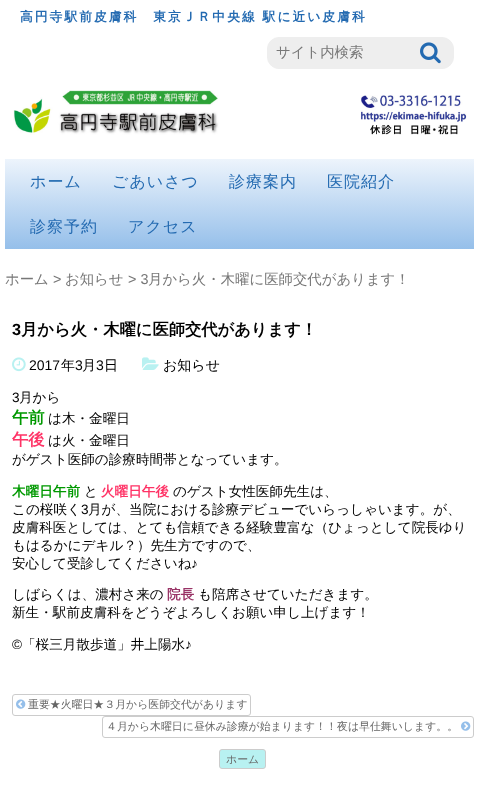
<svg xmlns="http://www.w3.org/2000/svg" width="479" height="809">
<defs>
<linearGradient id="g1" gradientUnits="userSpaceOnUse" x1="240" y1="159" x2="240" y2="249"><stop offset="0" stop-color="#edf4fc"/><stop offset="1" stop-color="#95bfea"/></linearGradient>
</defs>
<rect width="100%" height="100%" fill="#fff"/>
<text x="20" y="21" style="font-family:WenQuanYi Zen Hei;font-size:12.8px;font-weight:bold;letter-spacing:2px;fill:#236ab1">高円寺駅前皮膚科　東京ＪＲ中央線 駅に近い皮膚科</text>
<rect x="267.5" y="37.5" width="186" height="31" rx="11.5" fill="#eee" stroke="#eee"/>
<text x="276" y="57" style="font-family:WenQuanYi Zen Hei;font-size:14.4px;font-weight:500;fill:#777">サイト内検索</text>
<image x="420" y="42" width="21" height="22" href="media/1.png"/>
<image x="13" y="90" width="454" height="45" href="media/2.png"/>
<rect x="5" y="159" width="469" height="90" fill="url(#g1)"/>
<text x="30" y="187" style="font-family:WenQuanYi Zen Hei;font-size:16px;font-weight:500;letter-spacing:1px;fill:#236ab1">ホーム</text>
<text x="112" y="187" style="font-family:WenQuanYi Zen Hei;font-size:16px;font-weight:500;letter-spacing:1px;fill:#236ab1">ごあいさつ</text>
<text x="229" y="187" style="font-family:WenQuanYi Zen Hei;font-size:16px;font-weight:500;letter-spacing:1px;fill:#236ab1">診療案内</text>
<text x="327" y="187" style="font-family:WenQuanYi Zen Hei;font-size:16px;font-weight:500;letter-spacing:1px;fill:#236ab1">医院紹介</text>
<text x="30" y="232" style="font-family:WenQuanYi Zen Hei;font-size:16px;font-weight:500;letter-spacing:1px;fill:#236ab1">診察予約</text>
<text x="128" y="232" style="font-family:WenQuanYi Zen Hei;font-size:16px;font-weight:500;letter-spacing:1px;fill:#236ab1">アクセス</text>
<text x="5" y="284" style="font-family:WenQuanYi Zen Hei;font-size:14.4px;font-weight:500;fill:#777">ホーム</text>
<text x="53" y="284" style="font-family:Liberation Sans;font-size:14.4px;fill:#777">&gt;</text>
<text x="65" y="284" style="font-family:WenQuanYi Zen Hei;font-size:14.4px;font-weight:500;fill:#777">お知らせ</text>
<text x="128" y="284" style="font-family:Liberation Sans;font-size:14.4px;fill:#777">&gt; 3</text>
<text x="148" y="284" style="font-family:WenQuanYi Zen Hei;font-size:14.4px;font-weight:500;fill:#777">月から火・木曜に医師交代があります！</text>
<text x="12" y="335" style="font-family:Liberation Sans;font-size:16.3px;font-weight:bold;fill:#000">3</text>
<text x="21" y="335" style="font-family:WenQuanYi Zen Hei;font-size:16.3px;font-weight:bold;fill:#000">月から火・木曜に医師交代があります！</text>
<image x="12" y="357" width="14" height="15" href="media/3.png"/>
<text x="29" y="370" style="font-family:Liberation Sans;font-size:14px;fill:#000">2017</text>
<text x="61" y="370" style="font-family:WenQuanYi Zen Hei;font-size:14px;font-weight:500;fill:#000">年</text>
<text x="75" y="370" style="font-family:Liberation Sans;font-size:14px;fill:#000">3</text>
<text x="82" y="370" style="font-family:WenQuanYi Zen Hei;font-size:14px;font-weight:500;fill:#000">月</text>
<text x="96" y="370" style="font-family:Liberation Sans;font-size:14px;fill:#000">3</text>
<text x="104" y="370" style="font-family:WenQuanYi Zen Hei;font-size:14px;font-weight:500;fill:#000">日</text>
<image x="142" y="357" width="17" height="13" href="media/4.png"/>
<text x="163" y="370" style="font-family:WenQuanYi Zen Hei;font-size:14px;font-weight:500;fill:#000">お知らせ</text>
<text x="12" y="402" style="font-family:Liberation Sans;font-size:13.6px;fill:#000">3</text>
<text x="19" y="402" style="font-family:WenQuanYi Zen Hei;font-size:13.6px;font-weight:500;fill:#000">月から</text>
<text x="12" y="423" style="font-family:WenQuanYi Zen Hei;font-size:16.3px;font-weight:bold;fill:#090">午前</text>
<text x="48" y="423" style="font-family:WenQuanYi Zen Hei;font-size:13.6px;font-weight:500;fill:#000">は木・金曜日</text>
<text x="12" y="445" style="font-family:WenQuanYi Zen Hei;font-size:16.3px;font-weight:bold;fill:#f36">午後</text>
<text x="48" y="445" style="font-family:WenQuanYi Zen Hei;font-size:13.6px;font-weight:500;fill:#000">は火・金曜日</text>
<text x="12" y="464" style="font-family:WenQuanYi Zen Hei;font-size:13.6px;font-weight:500;fill:#000">がゲスト医師の診療時間帯となっています。</text>
<text x="12" y="496" style="font-family:WenQuanYi Zen Hei;font-size:13.6px;font-weight:bold;fill:#090">木曜日午前</text>
<text x="84" y="496" style="font-family:WenQuanYi Zen Hei;font-size:13.6px;font-weight:500;fill:#000">と</text>
<text x="101" y="496" style="font-family:WenQuanYi Zen Hei;font-size:13.6px;font-weight:bold;fill:#f36">火曜日午後</text>
<text x="173" y="496" style="font-family:WenQuanYi Zen Hei;font-size:13.6px;font-weight:500;fill:#000">のゲスト女性医師先生は、</text>
<text x="12" y="514" style="font-family:WenQuanYi Zen Hei;font-size:13.6px;font-weight:500;fill:#000">この桜咲く</text>
<text x="81" y="514" style="font-family:Liberation Sans;font-size:13.6px;fill:#000">3</text>
<text x="88" y="514" style="font-family:WenQuanYi Zen Hei;font-size:13.6px;font-weight:500;fill:#000">月が、当院における診療デビューでいらっしゃいます。が、</text>
<text x="12" y="532" style="font-family:WenQuanYi Zen Hei;font-size:13.6px;font-weight:500;fill:#000">皮膚科医としては、とても信頼できる経験豊富な（ひょっとして院長ゆり</text>
<text x="12" y="550" style="font-family:WenQuanYi Zen Hei;font-size:13.6px;font-weight:500;fill:#000">もはるかにデキル？）先生方ですので、</text>
<text x="12" y="568" style="font-family:WenQuanYi Zen Hei;font-size:13.6px;font-weight:500;fill:#000">安心して受診してくださいね</text>
<text x="191" y="568" style="font-family:Liberation Sans;font-size:13.6px;fill:#000">♪</text>
<text x="12" y="599" style="font-family:WenQuanYi Zen Hei;font-size:13.6px;font-weight:500;fill:#000">しばらくは、濃村さ来の</text>
<text x="167" y="599" style="font-family:WenQuanYi Zen Hei;font-size:13.6px;font-weight:bold;fill:#936">院長</text>
<text x="198" y="599" style="font-family:WenQuanYi Zen Hei;font-size:13.6px;font-weight:500;fill:#000">も陪席させていただきます。</text>
<text x="12" y="617" style="font-family:WenQuanYi Zen Hei;font-size:13.6px;font-weight:500;fill:#000">新生・駅前皮膚科をどうぞよろしくお願い申し上げます！</text>
<text x="12" y="649" style="font-family:Liberation Sans;font-size:13.6px;fill:#000">©</text>
<text x="22" y="649" style="font-family:WenQuanYi Zen Hei;font-size:13.6px;font-weight:500;fill:#000">「桜三月散歩道」井上陽水</text>
<text x="185" y="649" style="font-family:Liberation Sans;font-size:13.6px;fill:#000">♪</text>
<rect x="12.5" y="694.5" width="238" height="21" rx="2.5" fill="none" stroke="#ccc"/>
<image x="16" y="699" width="10" height="10" href="media/5.png"/>
<text x="28" y="708" style="font-family:WenQuanYi Zen Hei;font-size:10.9px;font-weight:500;fill:#666">重要★火曜日★３月から医師交代があります</text>
<rect x="102.5" y="716.5" width="371" height="21" rx="2.5" fill="none" stroke="#ccc"/>
<text x="106" y="730" style="font-family:WenQuanYi Zen Hei;font-size:10.9px;font-weight:500;fill:#666">４月から木曜日に昼休み診療が始まります！！夜は早仕舞いします。。</text>
<image x="461" y="721" width="10" height="10" href="media/6.png"/>
<rect x="219.5" y="749.5" width="46" height="19" rx="2.5" fill="#b8f1f1" stroke="#ccc"/>
<text x="226" y="763" style="font-family:WenQuanYi Zen Hei;font-size:10.9px;font-weight:500;fill:#666">ホーム</text>
</svg>
